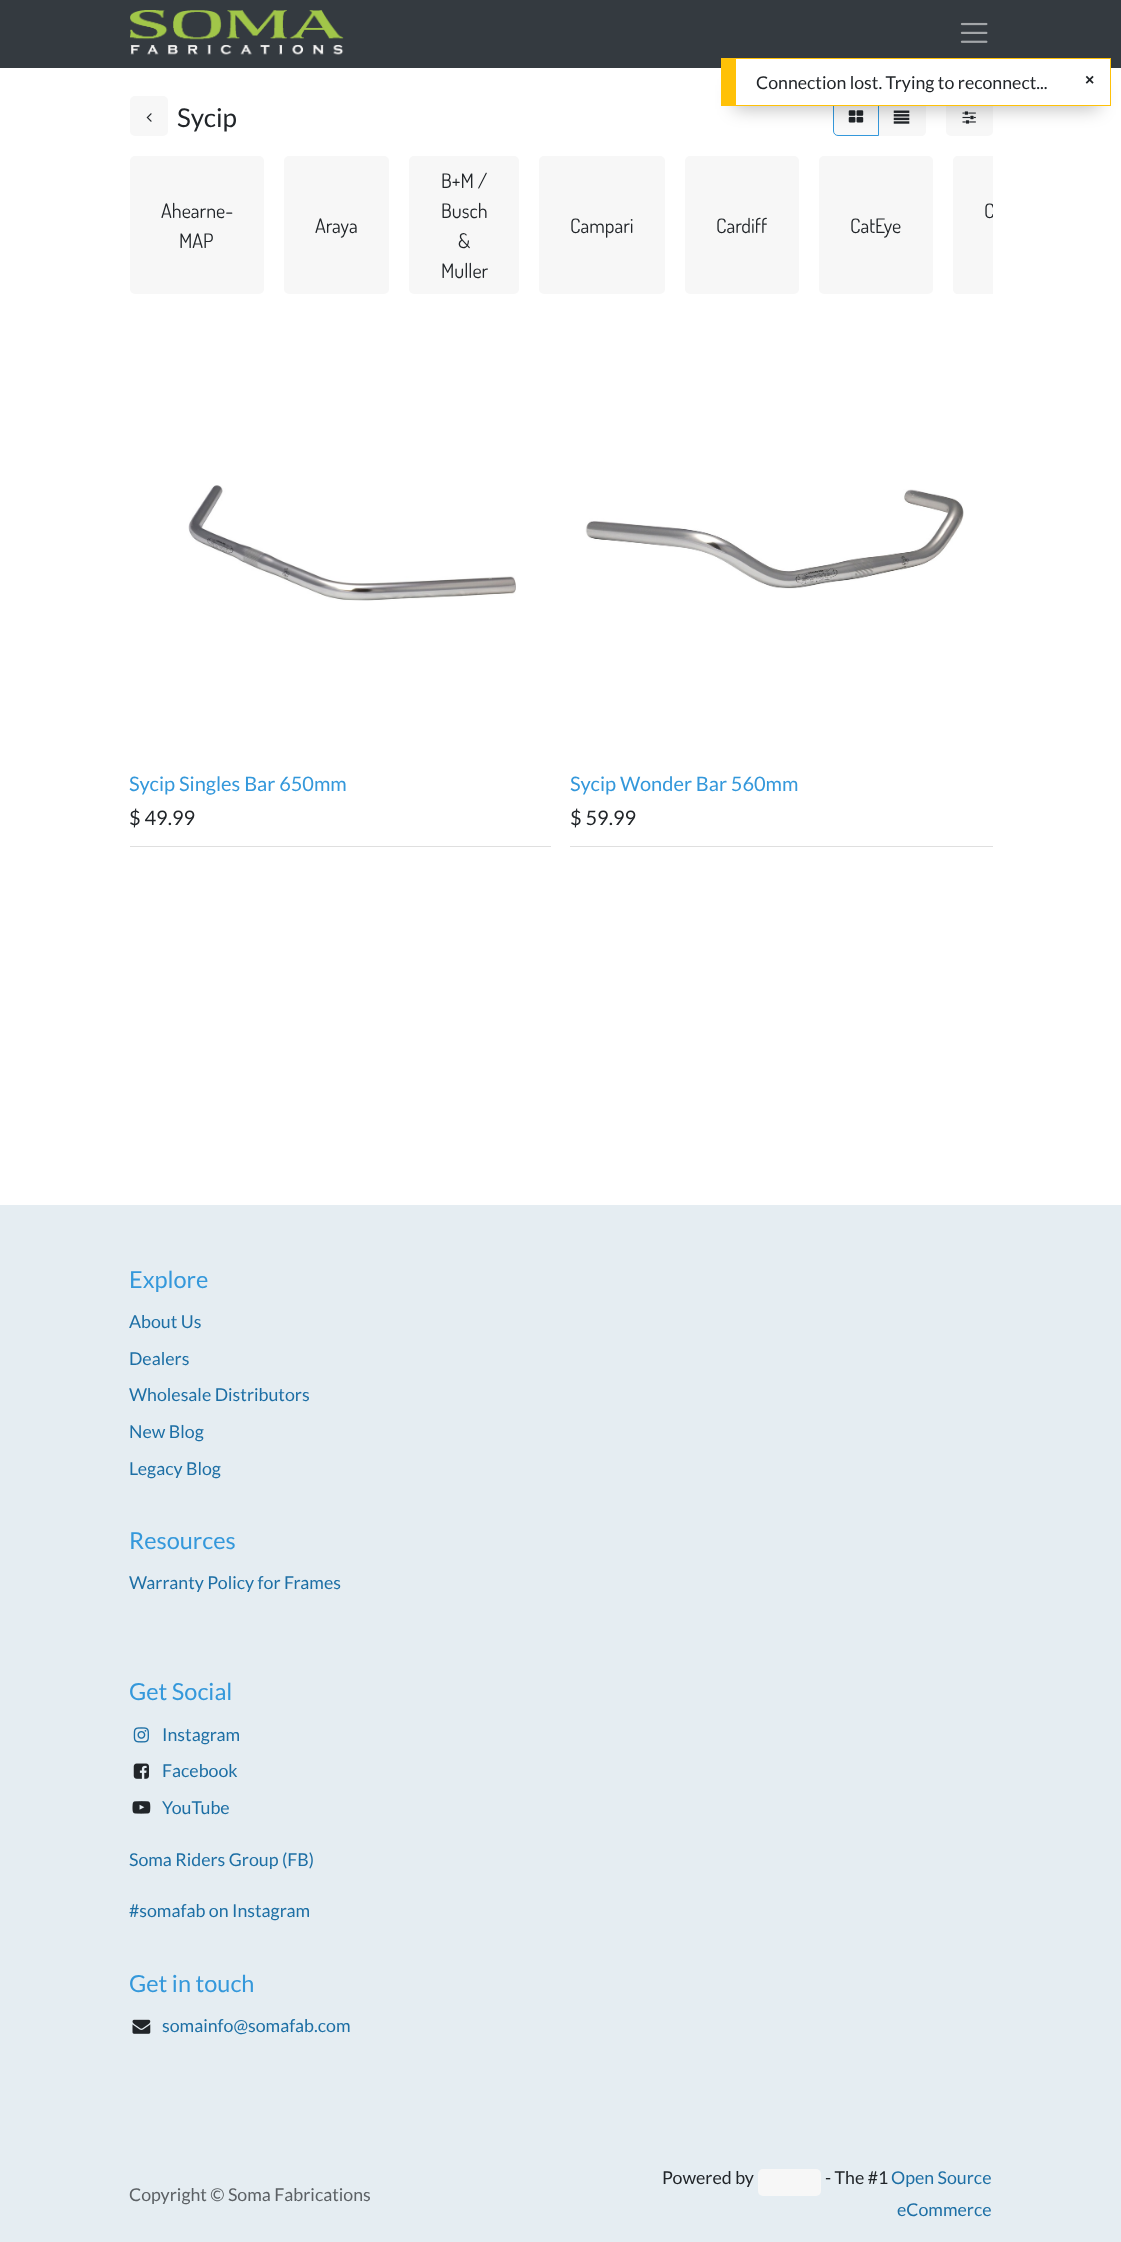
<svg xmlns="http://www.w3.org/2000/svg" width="1121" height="2242">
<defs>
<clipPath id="clip1"><rect x="130" y="156" width="863" height="143"/></clipPath>
</defs>
<rect width="100%" height="100%" fill="#fff"/>
<rect width="1121" height="68" fill="#343a40"/>
<path d="M878 96h43c3 0 5 2 5 5v30c0 3-2 5-5 5h-43z" fill="#f7f7f7"/>
<path d="M838 96.5h40.5v39h-40.5c-2.5 0-4.5-2-4.5-4.5v-30c0-2.5 2-4.5 4.5-4.5z" fill="#f9f9f9" stroke="#3498db"/>
<image x="848" y="110" width="16" height="13" href="media/4.png"/>
<image x="893" y="110" width="17" height="14" href="media/5.png"/>
<rect x="946" y="96" width="47" height="40" rx="5" fill="#f7f7f7"/>
<image x="962" y="111" width="14" height="13" href="media/6.png"/>
<rect x="734" y="85" width="365" height="24" fill="#00000040" filter="blur(9px)"/>
<rect x="736" y="59" width="374" height="46" fill="#fff"/>
<rect x="736" y="58" width="375" height="1" fill="#ffc107"/>
<rect x="1110" y="58" width="1" height="48" fill="#ffc107"/>
<rect x="736" y="105" width="375" height="1" fill="#ffc107"/>
<rect x="721" y="58" width="15" height="48" fill="#ffc107"/>
<text x="756" y="89" style="font-family:Lato;font-size:17.75px;fill:#212529">Connection lost. Trying to reconnect...</text>
<text x="1085" y="85" style="font-family:Liberation Sans;font-size:16px;font-weight:bold;fill:#212529">×</text>
<image x="130" y="10" width="214" height="45" href="media/1.png"/>
<image x="960" y="22" width="28" height="21" href="media/2.png"/>
<rect x="130" y="96" width="38" height="40" rx="5" fill="#f7f7f7"/>
<image x="146" y="113" width="6" height="9" href="media/3.png"/>
<text x="177" y="127" style="font-family:Lato;font-size:26px;fill:#212529">Sycip</text>
<rect x="130" y="156" width="134" height="138" rx="5" fill="#f7f7f7"/>
<text x="161" y="218" style="font-family:Dosis;font-size:20px;fill:#212529">Ahearne-</text>
<text x="179" y="248" style="font-family:Dosis;font-size:20px;fill:#212529">MAP</text>
<rect x="409" y="156" width="110" height="138" rx="5" fill="#f7f7f7"/>
<text x="441" y="188" style="font-family:Dosis;font-size:20px;fill:#212529">B+M /</text>
<text x="441" y="218" style="font-family:Dosis;font-size:20px;fill:#212529">Busch</text>
<text x="458" y="248" style="font-family:Dosis;font-size:20px;fill:#212529">&amp;</text>
<text x="441" y="278" style="font-family:Dosis;font-size:20px;fill:#212529">Muller</text>
<path d="M958 156h35v138h-35c-3 0-5-2-5-5v-128c0-3 2-5 5-5z" fill="#f7f7f7"/>
<g clip-path="url(#clip1)">
<text x="984" y="218" style="font-family:Dosis;font-size:20px;fill:#212529">C</text>
</g>
<rect x="284" y="156" width="105" height="138" rx="5" fill="#f7f7f7"/>
<text x="315" y="233" style="font-family:Dosis;font-size:20px;fill:#212529">Araya</text>
<rect x="539" y="156" width="126" height="138" rx="5" fill="#f7f7f7"/>
<text x="570" y="233" style="font-family:Dosis;font-size:20px;fill:#212529">Campari</text>
<rect x="685" y="156" width="114" height="138" rx="5" fill="#f7f7f7"/>
<text x="716" y="233" style="font-family:Dosis;font-size:20px;fill:#212529">Cardiff</text>
<rect x="819" y="156" width="114" height="138" rx="5" fill="#f7f7f7"/>
<text x="850" y="233" style="font-family:Dosis;font-size:20px;fill:#212529">CatEye</text>
<rect x="130" y="846" width="421" height="1" fill="#dfdfdf"/>
<image x="188" y="485" width="328" height="116" href="media/7.png"/>
<text x="129" y="791" style="font-family:Lato;font-size:20px;fill:#3498db">Sycip Singles Bar 650mm</text>
<text x="129" y="825" style="font-family:Lato;font-size:20px;fill:#212529">$ 49.99</text>
<rect x="570" y="846" width="423" height="1" fill="#dfdfdf"/>
<image x="585" y="489" width="379" height="100" href="media/8.png"/>
<text x="570" y="791" style="font-family:Lato;font-size:20px;fill:#3498db">Sycip Wonder Bar 560mm</text>
<text x="570" y="825" style="font-family:Lato;font-size:20px;fill:#212529">$ 59.99</text>
<rect y="1205" width="1121" height="1037" fill="#e5edf2"/>
<text x="129" y="1288" style="font-family:Lato;font-size:23.5px;fill:#3498db">Explore</text>
<text x="129" y="1328" style="font-family:Lato;font-size:17.75px;fill:#1d6fa5">About Us</text>
<text x="129" y="1365" style="font-family:Lato;font-size:17.75px;fill:#1d6fa5">Dealers</text>
<text x="129" y="1401" style="font-family:Lato;font-size:17.75px;fill:#1d6fa5">Wholesale Distributors</text>
<text x="129" y="1438" style="font-family:Lato;font-size:17.75px;fill:#1d6fa5">New Blog</text>
<text x="129" y="1475" style="font-family:Lato;font-size:17.75px;fill:#1d6fa5">Legacy Blog</text>
<text x="129" y="1549" style="font-family:Lato;font-size:23.5px;fill:#3498db">Resources</text>
<text x="129" y="1589" style="font-family:Lato;font-size:17.75px;fill:#1d6fa5">Warranty Policy for Frames</text>
<text x="129" y="1700" style="font-family:Lato;font-size:23.5px;fill:#3498db">Get Social</text>
<image x="133" y="1727" width="16" height="16" href="media/9.png"/>
<text x="162" y="1741" style="font-family:Lato;font-size:17.75px;fill:#1d6fa5">Instagram</text>
<image x="133" y="1763" width="16" height="16" href="media/10.png"/>
<text x="162" y="1777" style="font-family:Lato;font-size:17.75px;fill:#1d6fa5">Facebook</text>
<image x="132" y="1801" width="19" height="13" href="media/11.png"/>
<text x="162" y="1814" style="font-family:Lato;font-size:17.75px;fill:#1d6fa5">YouTube</text>
<text x="129" y="1866" style="font-family:Lato;font-size:17.75px;fill:#1d6fa5">Soma Riders Group (FB)</text>
<text x="129" y="1917" style="font-family:Lato;font-size:17.75px;fill:#1d6fa5">#somafab on Instagram</text>
<text x="129" y="1992" style="font-family:Lato;font-size:23.5px;fill:#3498db">Get in touch</text>
<image x="132" y="2019" width="19" height="15" href="media/12.png"/>
<text x="162" y="2032" style="font-family:Lato;font-size:17.75px;fill:#1d6fa5">somainfo@somafab.com</text>
<text x="129" y="2201" style="font-family:Lato;font-size:17.75px;fill:#5c6165">Copyright © Soma Fabrications</text>
<text x="662" y="2184" style="font-family:Lato;font-size:17.75px;fill:#212529">Powered by</text>
<rect x="758" y="2169" width="63" height="27" rx="5" fill="#f7f7f7"/>
<text x="825" y="2184" style="font-family:Lato;font-size:17.75px;fill:#212529">- The #1</text>
<text x="891" y="2184" style="font-family:Lato;font-size:17.75px;fill:#1d6fa5">Open Source</text>
<text x="897" y="2216" style="font-family:Lato;font-size:17.75px;fill:#1d6fa5">eCommerce</text>
</svg>
